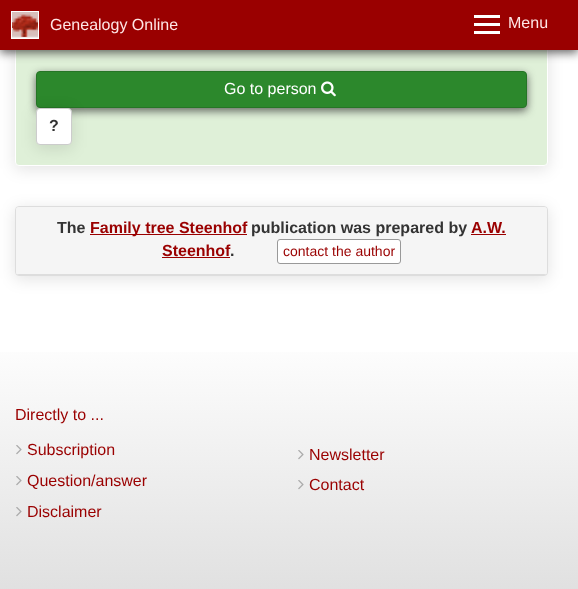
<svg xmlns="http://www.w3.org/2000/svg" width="578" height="589">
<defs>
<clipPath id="clip1"><rect x="16" y="207" width="531" height="68" rx="3"/></clipPath>
<linearGradient id="g1" gradientUnits="userSpaceOnUse" x1="289" y1="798" x2="289" y2="331"><stop offset="0" stop-color="#c8c8c8"/><stop offset="1" stop-color="#fff"/></linearGradient>
</defs>
<rect width="100%" height="100%" fill="#fff"/>
<rect x="14" y="-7" width="535" height="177" rx="5" fill="#0000001a" filter="blur(7.5px)"/>
<rect x="15.5" y="-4.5" width="532" height="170" rx="3.5" fill="#dff0d8" stroke="#fff"/>
<rect y="3" width="578" height="50" fill="#323232ba" filter="blur(5px)"/>
<rect width="578" height="50" fill="#9a0000"/>
<image x="12" y="12" width="26" height="26" href="media/1.png"/>
<rect x="11.5" y="11.5" width="27" height="27" fill="none" stroke="#fff"/>
<text x="50" y="30" style="font-family:Liberation Sans;font-size:16px;fill:#ffe6e6">Genealogy Online</text>
<rect x="474" y="31" width="26" height="3" fill="#fff"/>
<rect x="474" y="15" width="26" height="3" fill="#fff"/>
<rect x="474" y="23" width="26" height="3" fill="#fff"/>
<text x="508" y="28" style="font-family:Liberation Sans;font-size:16px;fill:#ffe6e6">Menu</text>
<rect x="36" y="74" width="491" height="37" rx="4" fill="#323232ba" filter="blur(4px)"/>
<rect x="36.5" y="71.5" width="490" height="36" rx="3.5" fill="#2c882c" stroke="#267526"/>
<text x="224" y="94" style="font-family:Liberation Sans;font-size:16px;fill:#fff">Go to person</text>
<image x="321" y="81" width="15" height="16" href="media/2.png"/>
<rect x="35" y="110" width="38" height="39" rx="5" fill="#0000001a" filter="blur(7.5px)"/>
<rect x="36.5" y="108.5" width="35" height="36" rx="3.5" fill="#fff" stroke="#ccc"/>
<text x="49" y="131" style="font-family:Liberation Sans;font-size:16px;font-weight:bold;fill:#333">?</text>
<rect x="14" y="208" width="535" height="72" rx="5" fill="#0000001a" filter="blur(7.5px)"/>
<rect x="15.5" y="206.5" width="532" height="69" rx="3.5" fill="none" stroke="#ddd"/>
<rect x="16" y="207" width="531" height="68" rx="3" fill="#f5f5f5"/>
<g clip-path="url(#clip1)">
<rect x="16" y="274" width="531" height="1" fill="#ddd"/>
</g>
<text x="57" y="233" style="font-family:Liberation Sans;font-size:16px;font-weight:bold;fill:#333">The</text>
<rect x="90" y="234" width="157" height="1" fill="#9a0000"/>
<text x="90" y="233" style="font-family:Liberation Sans;font-size:16px;font-weight:bold;fill:#9a0000">Family tree Steenhof</text>
<text x="251" y="233" style="font-family:Liberation Sans;font-size:16px;font-weight:bold;fill:#333">publication was prepared by</text>
<text x="471" y="233" style="font-family:Liberation Sans;font-size:16px;font-weight:bold;fill:#9a0000">A.W.</text>
<rect x="471" y="234" width="35" height="1" fill="#9a0000"/>
<text x="162" y="256" style="font-family:Liberation Sans;font-size:16px;font-weight:bold;fill:#9a0000">Steenhof</text>
<rect x="162" y="257" width="68" height="1" fill="#9a0000"/>
<text x="230" y="256" style="font-family:Liberation Sans;font-size:16px;font-weight:bold;fill:#333">.</text>
<rect x="277.5" y="239.5" width="123" height="24" rx="2.5" fill="#fff" stroke="#999"/>
<text x="283" y="256" style="font-family:Liberation Sans;font-size:14px;fill:#9a0000">contact the author</text>
<rect y="352" width="578" height="237" fill="url(#g1)"/>
<text x="15" y="420" style="font-family:Liberation Sans;font-size:16px;fill:#9a0000">Directly to ...</text>
<image x="16" y="445" width="6" height="10" href="media/3.png"/>
<text x="27" y="455" style="font-family:Liberation Sans;font-size:16px;fill:#9a0000">Subscription</text>
<image x="16" y="476" width="6" height="10" href="media/4.png"/>
<text x="27" y="486" style="font-family:Liberation Sans;font-size:16px;fill:#9a0000">Question/answer</text>
<image x="16" y="507" width="6" height="10" href="media/5.png"/>
<text x="27" y="517" style="font-family:Liberation Sans;font-size:16px;fill:#9a0000">Disclaimer</text>
<image x="298" y="450" width="6" height="10" href="media/6.png"/>
<text x="309" y="460" style="font-family:Liberation Sans;font-size:16px;fill:#9a0000">Newsletter</text>
<image x="298" y="480" width="6" height="10" href="media/7.png"/>
<text x="309" y="490" style="font-family:Liberation Sans;font-size:16px;fill:#9a0000">Contact</text>
</svg>
